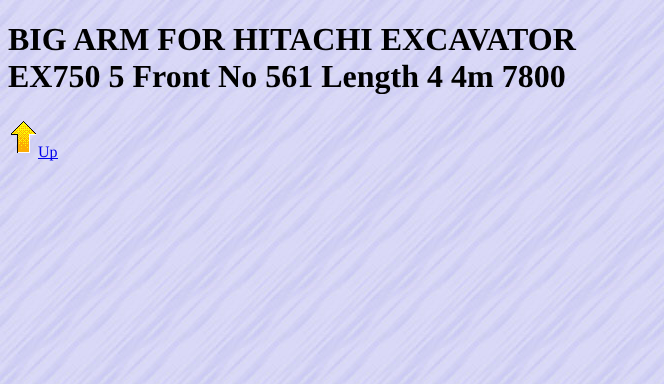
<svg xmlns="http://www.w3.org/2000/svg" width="664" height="384">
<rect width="100%" height="100%" fill="#fff"/>
<image x="0" y="0" width="664" height="384" href="media/1.png"/>
<text x="8" y="50" style="font-family:Liberation Serif;font-size:32px;font-weight:bold;fill:#000">BIG ARM FOR HITACHI EXCAVATOR</text>
<text x="8" y="87" style="font-family:Liberation Serif;font-size:32px;font-weight:bold;fill:#000">EX750 5 Front No 561 Length 4 4m 7800</text>
<image x="11" y="121" width="25" height="32" href="media/2.png"/>
<rect x="38" y="158" width="20" height="1" fill="#00e"/>
<text x="38" y="157" style="font-family:Liberation Serif;font-size:16px;fill:#00e">Up</text>
</svg>
